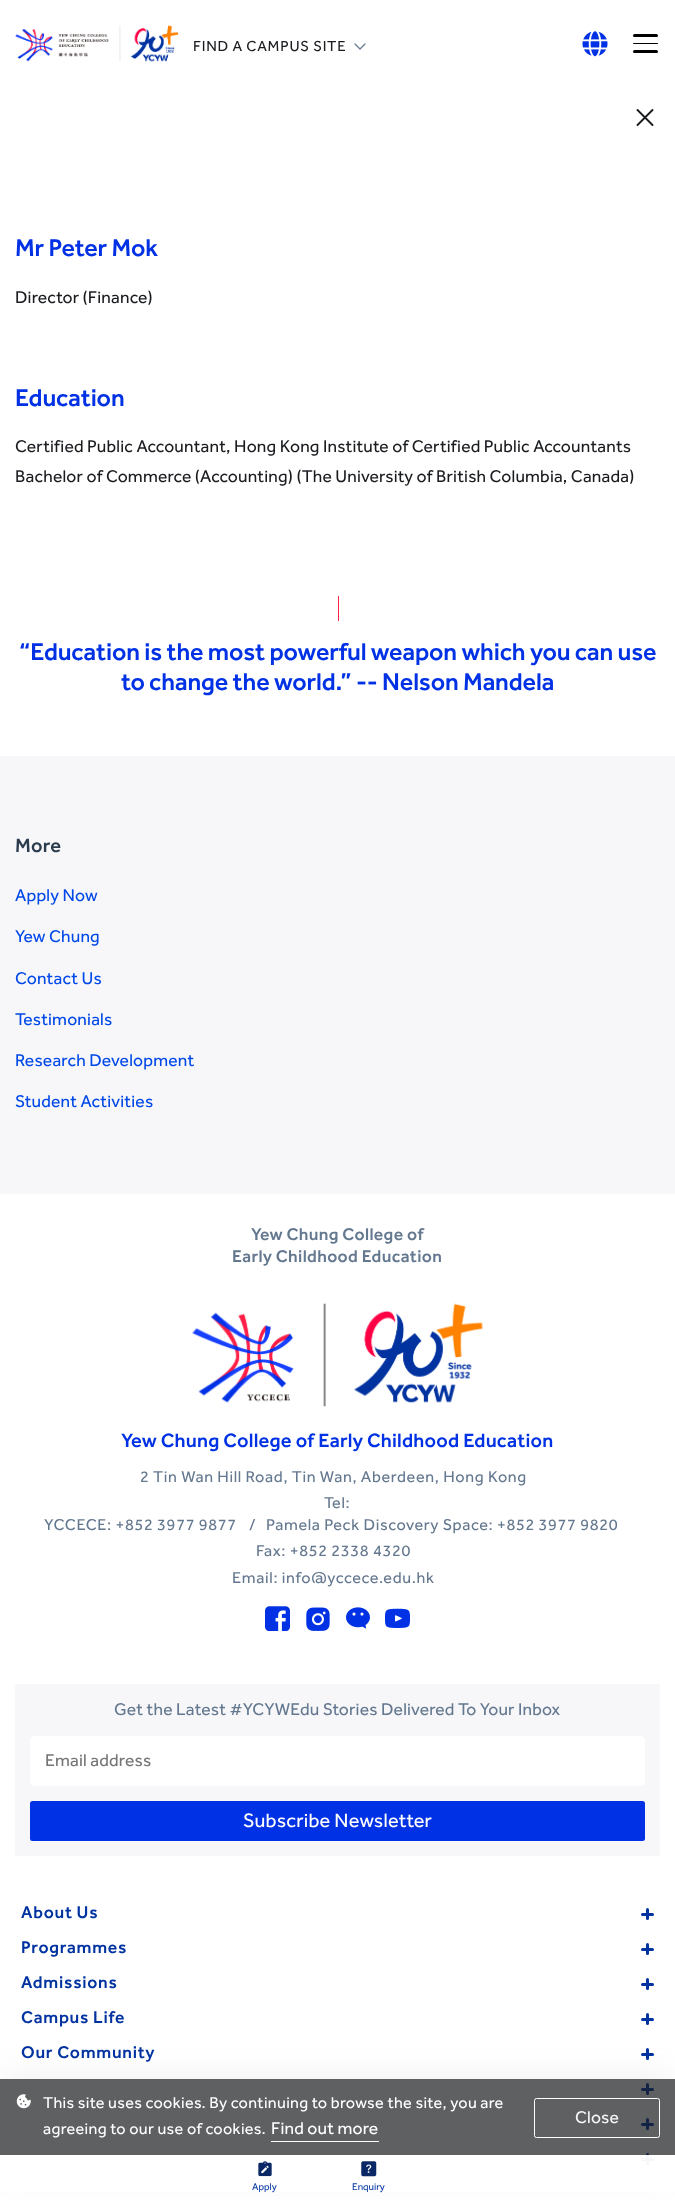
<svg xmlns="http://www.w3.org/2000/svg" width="675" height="2200">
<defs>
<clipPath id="clip1"><path d="M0 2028h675v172h-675zm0 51h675v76h-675z" clip-rule="evenodd"/></clipPath>
</defs>
<rect width="100%" height="100%" fill="#fff"/>
<image x="15" y="25" width="164" height="37" href="media/1.png"/>
<text x="193" y="51" style="font-family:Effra;font-size:15px;letter-spacing:0.75px;fill:#1a1c20">FIND A CAMPUS SITE</text>
<path d="M365 44l-5 5l-5-5" fill="none" stroke="#64788f" stroke-width="1.2" stroke-linecap="round" stroke-linejoin="round"/>
<image x="582" y="31" width="26" height="26" href="media/2.png"/>
<rect x="633" y="43" width="25" height="1" rx="0.5" fill="#000"/>
<rect x="633" y="34" width="25" height="3" rx="1.5" fill="#000"/>
<rect x="633" y="50" width="25" height="3" rx="1.5" fill="#000"/>
<path d="M652.5 125l-15-15m15 0l-15 15" fill="none" stroke="#1a1c20" stroke-width="1.9" stroke-linecap="round"/>
<text x="15" y="256" style="font-family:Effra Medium;font-size:25px;font-weight:500;letter-spacing:-0.12px;fill:#0031e5">Mr Peter Mok</text>
<text x="15" y="303" style="font-family:Effra;font-size:17.5px;letter-spacing:0.18px;fill:#1a1c20">Director (Finance)</text>
<text x="15" y="406" style="font-family:Effra Medium;font-size:25px;font-weight:500;letter-spacing:-0.12px;fill:#0031e5">Education</text>
<text x="15" y="452" style="font-family:Effra;font-size:17.5px;letter-spacing:0.18px;fill:#1a1c20">Certified Public Accountant, Hong Kong Institute of Certified Public Accountants</text>
<text x="15" y="482" style="font-family:Effra;font-size:17.5px;letter-spacing:0.18px;fill:#1a1c20">Bachelor of Commerce (Accounting) (The University of British Columbia, Canada)</text>
<rect x="338" y="596" width="1" height="25" fill="#ff1e46"/>
<text x="19" y="660" style="font-family:Effra Medium;font-size:25px;font-weight:500;letter-spacing:-0.12px;fill:#0031e5">“Education is the most powerful weapon which you can use</text>
<text x="121" y="690" style="font-family:Effra Medium;font-size:25px;font-weight:500;letter-spacing:-0.12px;fill:#0031e5">to change the world.” -- Nelson Mandela</text>
<rect y="756" width="675" height="438" fill="#f7f7fa"/>
<text x="15" y="852" style="font-family:Effra Medium;font-size:20px;font-weight:500;letter-spacing:0.2px;fill:#2a3b4d">More</text>
<text x="15" y="901" style="font-family:Effra;font-size:17.5px;letter-spacing:0.18px;fill:#0048e8">Apply Now</text>
<text x="15" y="942" style="font-family:Effra;font-size:17.5px;letter-spacing:0.18px;fill:#0048e8">Yew Chung</text>
<text x="15" y="984" style="font-family:Effra;font-size:17.5px;letter-spacing:0.18px;fill:#0048e8">Contact Us</text>
<text x="15" y="1025" style="font-family:Effra;font-size:17.5px;letter-spacing:0.18px;fill:#0048e8">Testimonials</text>
<text x="15" y="1066" style="font-family:Effra;font-size:17.5px;letter-spacing:0.18px;fill:#0048e8">Research Development</text>
<text x="15" y="1107" style="font-family:Effra;font-size:17.5px;letter-spacing:0.18px;fill:#0048e8">Student Activities</text>
<text x="251" y="1240" style="font-family:Effra Medium;font-size:17.5px;font-weight:500;letter-spacing:0.35px;fill:#64788f">Yew Chung College of</text>
<text x="232" y="1262" style="font-family:Effra Medium;font-size:17.5px;font-weight:500;letter-spacing:0.35px;fill:#64788f">Early Childhood Education</text>
<image x="192" y="1303" width="291" height="104" href="media/3.png"/>
<text x="121" y="1447" style="font-family:Effra Medium;font-size:20px;font-weight:500;letter-spacing:0.2px;fill:#0031e5">Yew Chung College of Early Childhood Education</text>
<text x="140" y="1482" style="font-family:Effra;font-size:16.25px;letter-spacing:0.65px;fill:#64788f">2 Tin Wan Hill Road, Tin Wan, Aberdeen, Hong Kong</text>
<text x="324" y="1508" style="font-family:Effra;font-size:16.25px;letter-spacing:0.65px;fill:#64788f">Tel:</text>
<text x="44" y="1530" style="font-family:Effra;font-size:16.25px;letter-spacing:0.65px;fill:#64788f">YCCECE: +852 3977 9877</text>
<text x="249" y="1530" style="font-family:Effra;font-size:16.25px;letter-spacing:0.65px;fill:#64788f">/</text>
<text x="266" y="1530" style="font-family:Effra;font-size:16.25px;letter-spacing:0.65px;fill:#64788f">Pamela Peck Discovery Space: +852 3977 9820</text>
<text x="256" y="1556" style="font-family:Effra;font-size:16.25px;letter-spacing:0.65px;fill:#64788f">Fax: +852 2338 4320</text>
<text x="232" y="1583" style="font-family:Effra;font-size:16.25px;letter-spacing:0.65px;fill:#64788f">Email: info@yccece.edu.hk</text>
<image x="265" y="1606" width="25" height="25" href="media/4.png"/>
<image x="306" y="1607" width="24" height="24" href="media/5.png"/>
<image x="346" y="1607" width="24" height="22" href="media/6.png"/>
<image x="385" y="1608" width="25" height="20" href="media/7.png"/>
<rect x="15" y="1684" width="645" height="172" rx="2.5" fill="#f7f7fa"/>
<text x="114" y="1715" style="font-family:Effra;font-size:17.5px;letter-spacing:0.18px;fill:#64788f">Get the Latest #YCYWEdu Stories Delivered To Your Inbox</text>
<rect x="30" y="1736" width="615" height="50" rx="5" fill="#fff"/>
<text x="45" y="1766" style="font-family:Effra;font-size:17.5px;letter-spacing:0.18px;fill:#757575">Email address</text>
<rect x="30" y="1801" width="615" height="40" rx="2.5" fill="#0031e5"/>
<text x="243" y="1827" style="font-family:Effra;font-size:20px;letter-spacing:0.2px;fill:#fff">Subscribe Newsletter</text>
<text x="21" y="1918" style="font-family:Effra Medium;font-size:17.5px;font-weight:500;letter-spacing:0.75px;fill:#0032a0">About Us</text>
<rect x="641" y="1913" width="13" height="3" rx="1.5" fill="#0032a0"/>
<rect x="646" y="1908" width="3" height="12" rx="1.5" fill="#0032a0"/>
<text x="21" y="1953" style="font-family:Effra Medium;font-size:17.5px;font-weight:500;letter-spacing:0.75px;fill:#0032a0">Programmes</text>
<rect x="641" y="1948" width="13" height="3" rx="1.5" fill="#0032a0"/>
<rect x="646" y="1943" width="3" height="12" rx="1.5" fill="#0032a0"/>
<text x="21" y="1988" style="font-family:Effra Medium;font-size:17.5px;font-weight:500;letter-spacing:0.75px;fill:#0032a0">Admissions</text>
<rect x="641" y="1983" width="13" height="3" rx="1.5" fill="#0032a0"/>
<rect x="646" y="1978" width="3" height="12" rx="1.5" fill="#0032a0"/>
<text x="21" y="2023" style="font-family:Effra Medium;font-size:17.5px;font-weight:500;letter-spacing:0.75px;fill:#0032a0">Campus Life</text>
<rect x="641" y="2018" width="13" height="3" rx="1.5" fill="#0032a0"/>
<rect x="646" y="2013" width="3" height="12" rx="1.5" fill="#0032a0"/>
<text x="21" y="2058" style="font-family:Effra Medium;font-size:17.5px;font-weight:500;letter-spacing:0.75px;fill:#0032a0">Our Community</text>
<rect x="641" y="2053" width="13" height="3" rx="1.5" fill="#0032a0"/>
<rect x="646" y="2048" width="3" height="12" rx="1.5" fill="#0032a0"/>
<rect x="641" y="2088" width="13" height="3" rx="1.5" fill="#0032a0"/>
<rect x="646" y="2083" width="3" height="12" rx="1.5" fill="#0032a0"/>
<rect x="641" y="2123" width="13" height="3" rx="1.5" fill="#0032a0"/>
<rect x="646" y="2118" width="3" height="12" rx="1.5" fill="#0032a0"/>
<rect x="641" y="2158" width="13" height="3" rx="1.5" fill="#0032a0"/>
<rect x="646" y="2153" width="3" height="12" rx="1.5" fill="#0032a0"/>
<g clip-path="url(#clip1)">
<rect y="2089" width="675" height="76" fill="#82828c3d" filter="blur(20px)"/>
</g>
<rect y="2079" width="675" height="76" fill="#1a1c20b3"/>
<image x="16" y="2094" width="15" height="15" href="media/8.png"/>
<text x="43" y="2108" style="font-family:Effra;font-size:16.25px;letter-spacing:0.33px;fill:#fff">This site uses cookies. By continuing to browse the site, you are</text>
<text x="43" y="2134" style="font-family:Effra;font-size:16.25px;letter-spacing:0.33px;fill:#fff">agreeing to our use of cookies.</text>
<text x="271" y="2134" style="font-family:Effra;font-size:17.5px;letter-spacing:0.18px;fill:#fff">Find out more</text>
<rect x="271" y="2141" width="108" height="1" fill="#fff"/>
<rect x="534.5" y="2098.5" width="125" height="39" rx="2" fill="none" stroke="#fff"/>
<text x="575" y="2123" style="font-family:Effra;font-size:17.5px;letter-spacing:0.18px;fill:#f7f7fa">Close</text>
<rect y="2155" width="675" height="37" fill="#fffffff5"/>
<image x="258" y="2161" width="14" height="16" href="media/9.png"/>
<text x="252" y="2190" style="font-family:Effra;font-size:10px;fill:#0a3aa4">Apply</text>
<image x="361" y="2161" width="16" height="16" href="media/10.png"/>
<text x="352" y="2190" style="font-family:Effra;font-size:10px;fill:#0a3aa4">Enquiry</text>
</svg>
